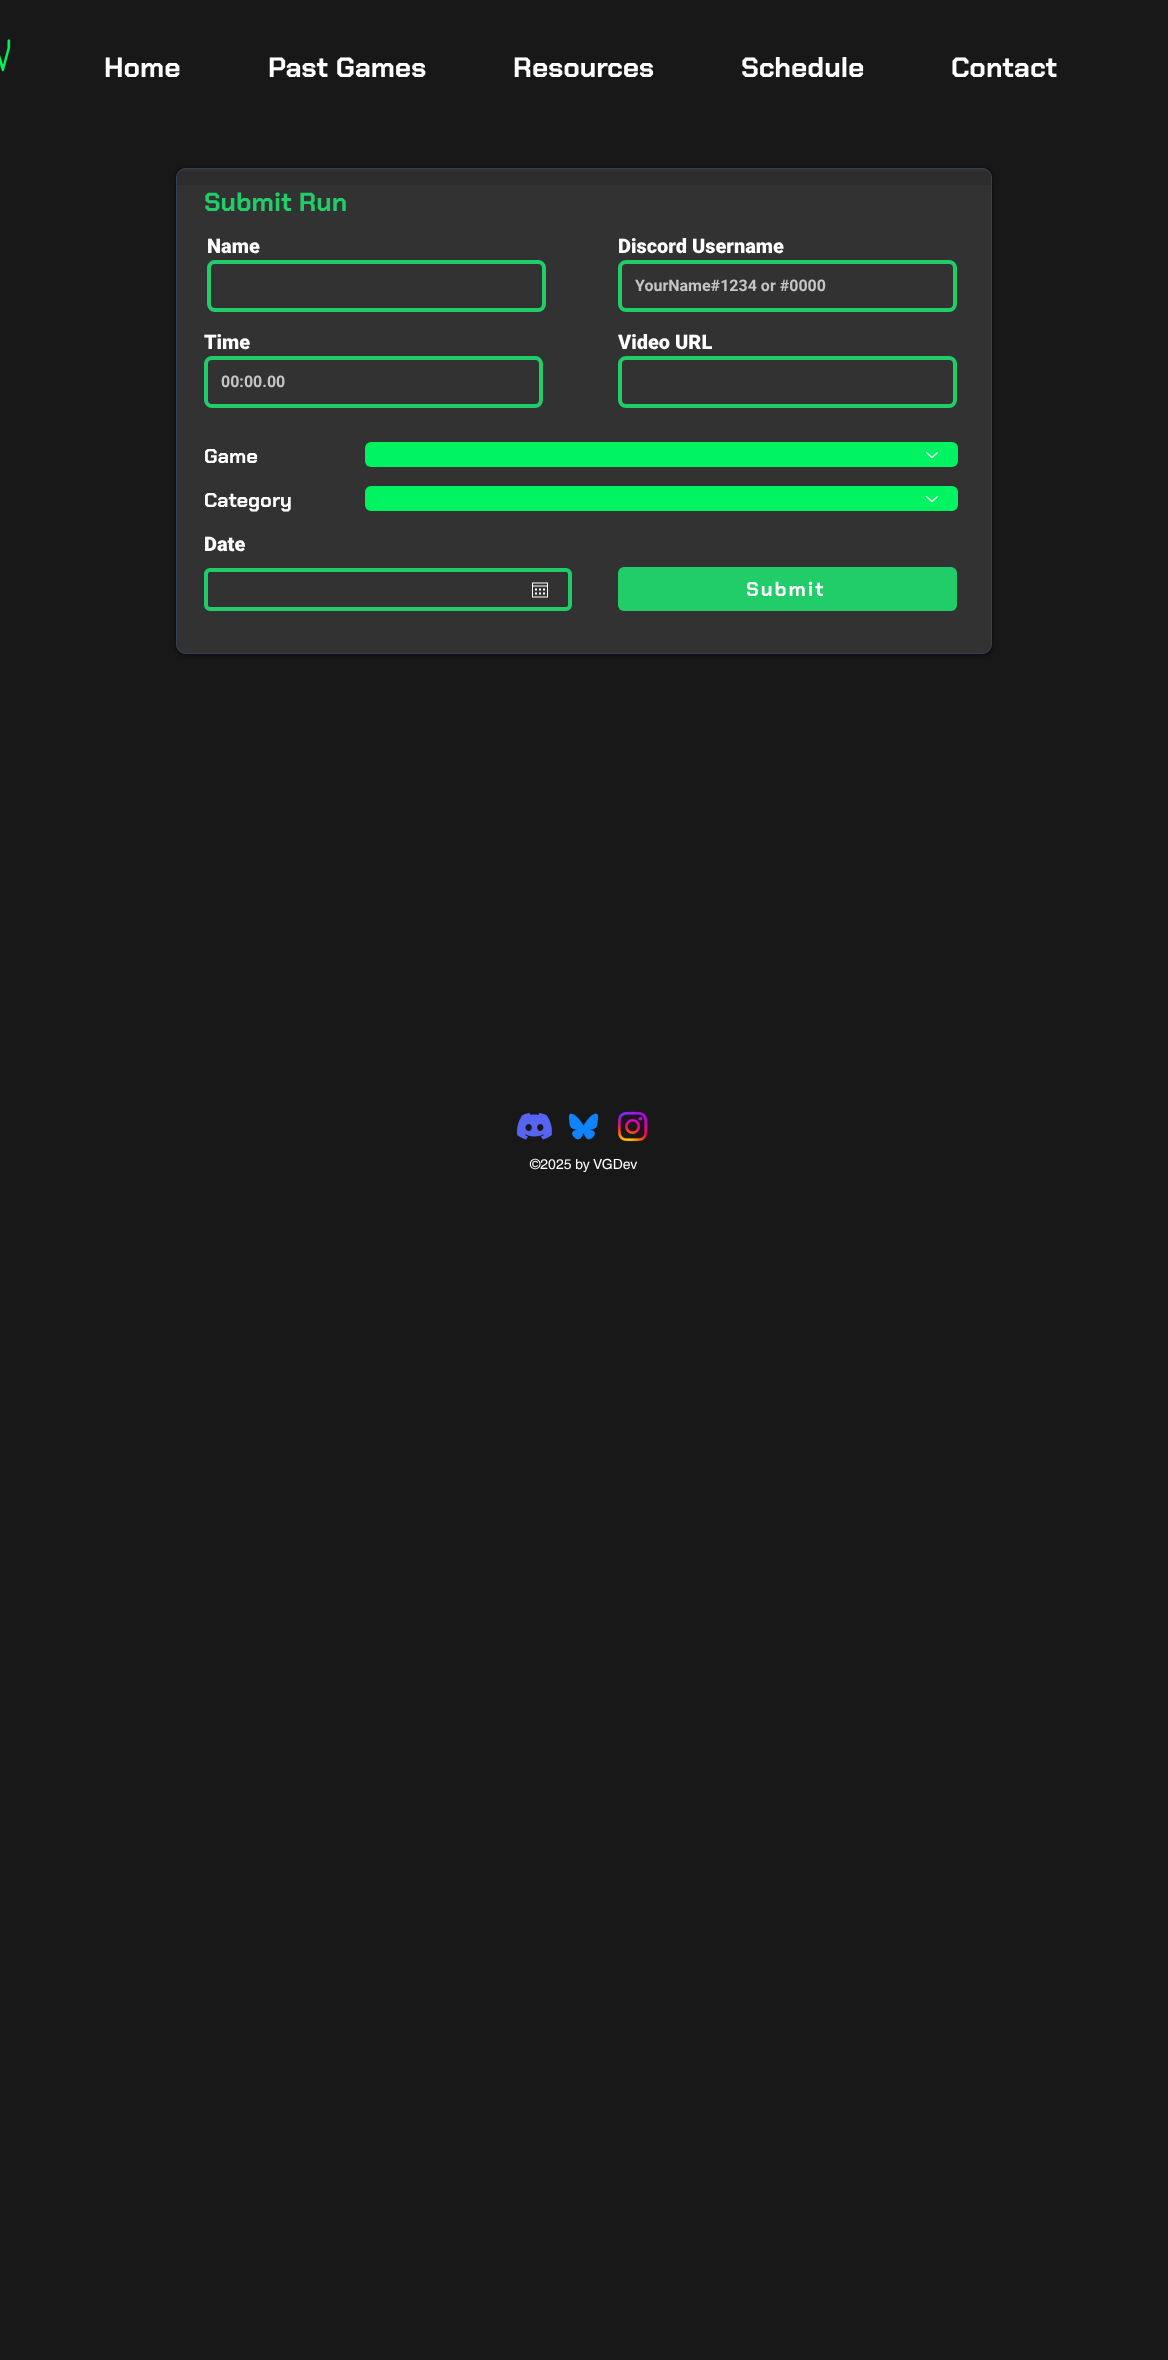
<svg xmlns="http://www.w3.org/2000/svg" width="1168" height="2360">
<rect width="100%" height="100%" fill="#181818"/>
<image x="0" y="39" width="11" height="33" href="media/1.png"/>
<text x="104" y="77" style="font-family:Chakra Petch;font-size:28px;font-weight:bold;fill:#fff">Home</text>
<text x="268" y="77" style="font-family:Chakra Petch;font-size:28px;font-weight:bold;fill:#fff">Past Games</text>
<text x="513" y="77" style="font-family:Chakra Petch;font-size:28px;font-weight:bold;fill:#fff">Resources</text>
<text x="741" y="77" style="font-family:Chakra Petch;font-size:28px;font-weight:bold;fill:#fff">Schedule</text>
<text x="951" y="77" style="font-family:Chakra Petch;font-size:28px;font-weight:bold;fill:#fff">Contact</text>
<rect x="176" y="169" width="816" height="486" rx="10" fill="#00000099" filter="blur(2px)"/>
<rect x="176" y="168" width="816" height="486" rx="10" fill="#323232"/>
<image x="176" y="171" width="816" height="14" href="media/2.png"/>
<rect x="176.5" y="168.5" width="815" height="485" rx="9.5" fill="none" stroke="#324158"/>
<text x="204" y="211" style="font-family:Chakra Petch;font-size:26px;font-weight:bold;fill:#20cd69">Submit Run</text>
<text x="207" y="253" style="font-family:Roboto;font-size:20px;font-weight:900;fill:#fff">Name</text>
<rect x="209" y="262" width="335" height="48" rx="6" fill="none" stroke="#20cd69" stroke-width="4"/>
<text x="618" y="253" style="font-family:Roboto;font-size:20px;font-weight:900;fill:#fff">Discord Username</text>
<rect x="620" y="262" width="335" height="48" rx="6" fill="none" stroke="#20cd69" stroke-width="4"/>
<text x="635" y="291" style="font-family:Roboto;font-size:16px;font-weight:bold;fill:#c5c5c5">YourName#1234 or #0000</text>
<text x="204" y="349" style="font-family:Roboto;font-size:20px;font-weight:900;fill:#fff">Time</text>
<rect x="206" y="358" width="335" height="48" rx="6" fill="none" stroke="#20cd69" stroke-width="4"/>
<text x="221" y="387" style="font-family:Roboto;font-size:16px;font-weight:bold;fill:#c5c5c5">00:00.00</text>
<text x="618" y="349" style="font-family:Roboto;font-size:20px;font-weight:900;fill:#fff">Video URL</text>
<rect x="620" y="358" width="335" height="48" rx="6" fill="none" stroke="#20cd69" stroke-width="4"/>
<text x="204" y="463" style="font-family:Chakra Petch;font-size:20px;font-weight:bold;fill:#fff">Game</text>
<rect x="365" y="442" width="593" height="25" rx="6" fill="#00f461"/>
<image x="926" y="452" width="12" height="6" href="media/3.png"/>
<text x="204" y="507" style="font-family:Chakra Petch;font-size:20px;font-weight:bold;fill:#fff">Category</text>
<rect x="365" y="486" width="593" height="25" rx="6" fill="#00f461"/>
<image x="926" y="496" width="12" height="6" href="media/3.png"/>
<text x="204" y="551" style="font-family:Roboto;font-size:20px;font-weight:900;fill:#fff">Date</text>
<rect x="206" y="570" width="364" height="39" rx="4" fill="none" stroke="#20cd69" stroke-width="4"/>
<image x="532" y="582" width="16" height="16" href="media/4.png"/>
<rect x="618" y="567" width="339" height="44" rx="6" fill="#20cd69"/>
<text x="746" y="596" style="font-family:Chakra Petch;font-size:20px;font-weight:bold;letter-spacing:2px;fill:#fff">Submit</text>
<image x="516" y="1112" width="37" height="28" href="media/5.png"/>
<image x="568" y="1113" width="31" height="27" href="media/6.png"/>
<image x="617" y="1111" width="31" height="31" href="media/7.png"/>
<text x="530" y="1169" style="font-family:helvetica;font-size:14px;fill:#fff">©2025 by VGDev</text>
</svg>
